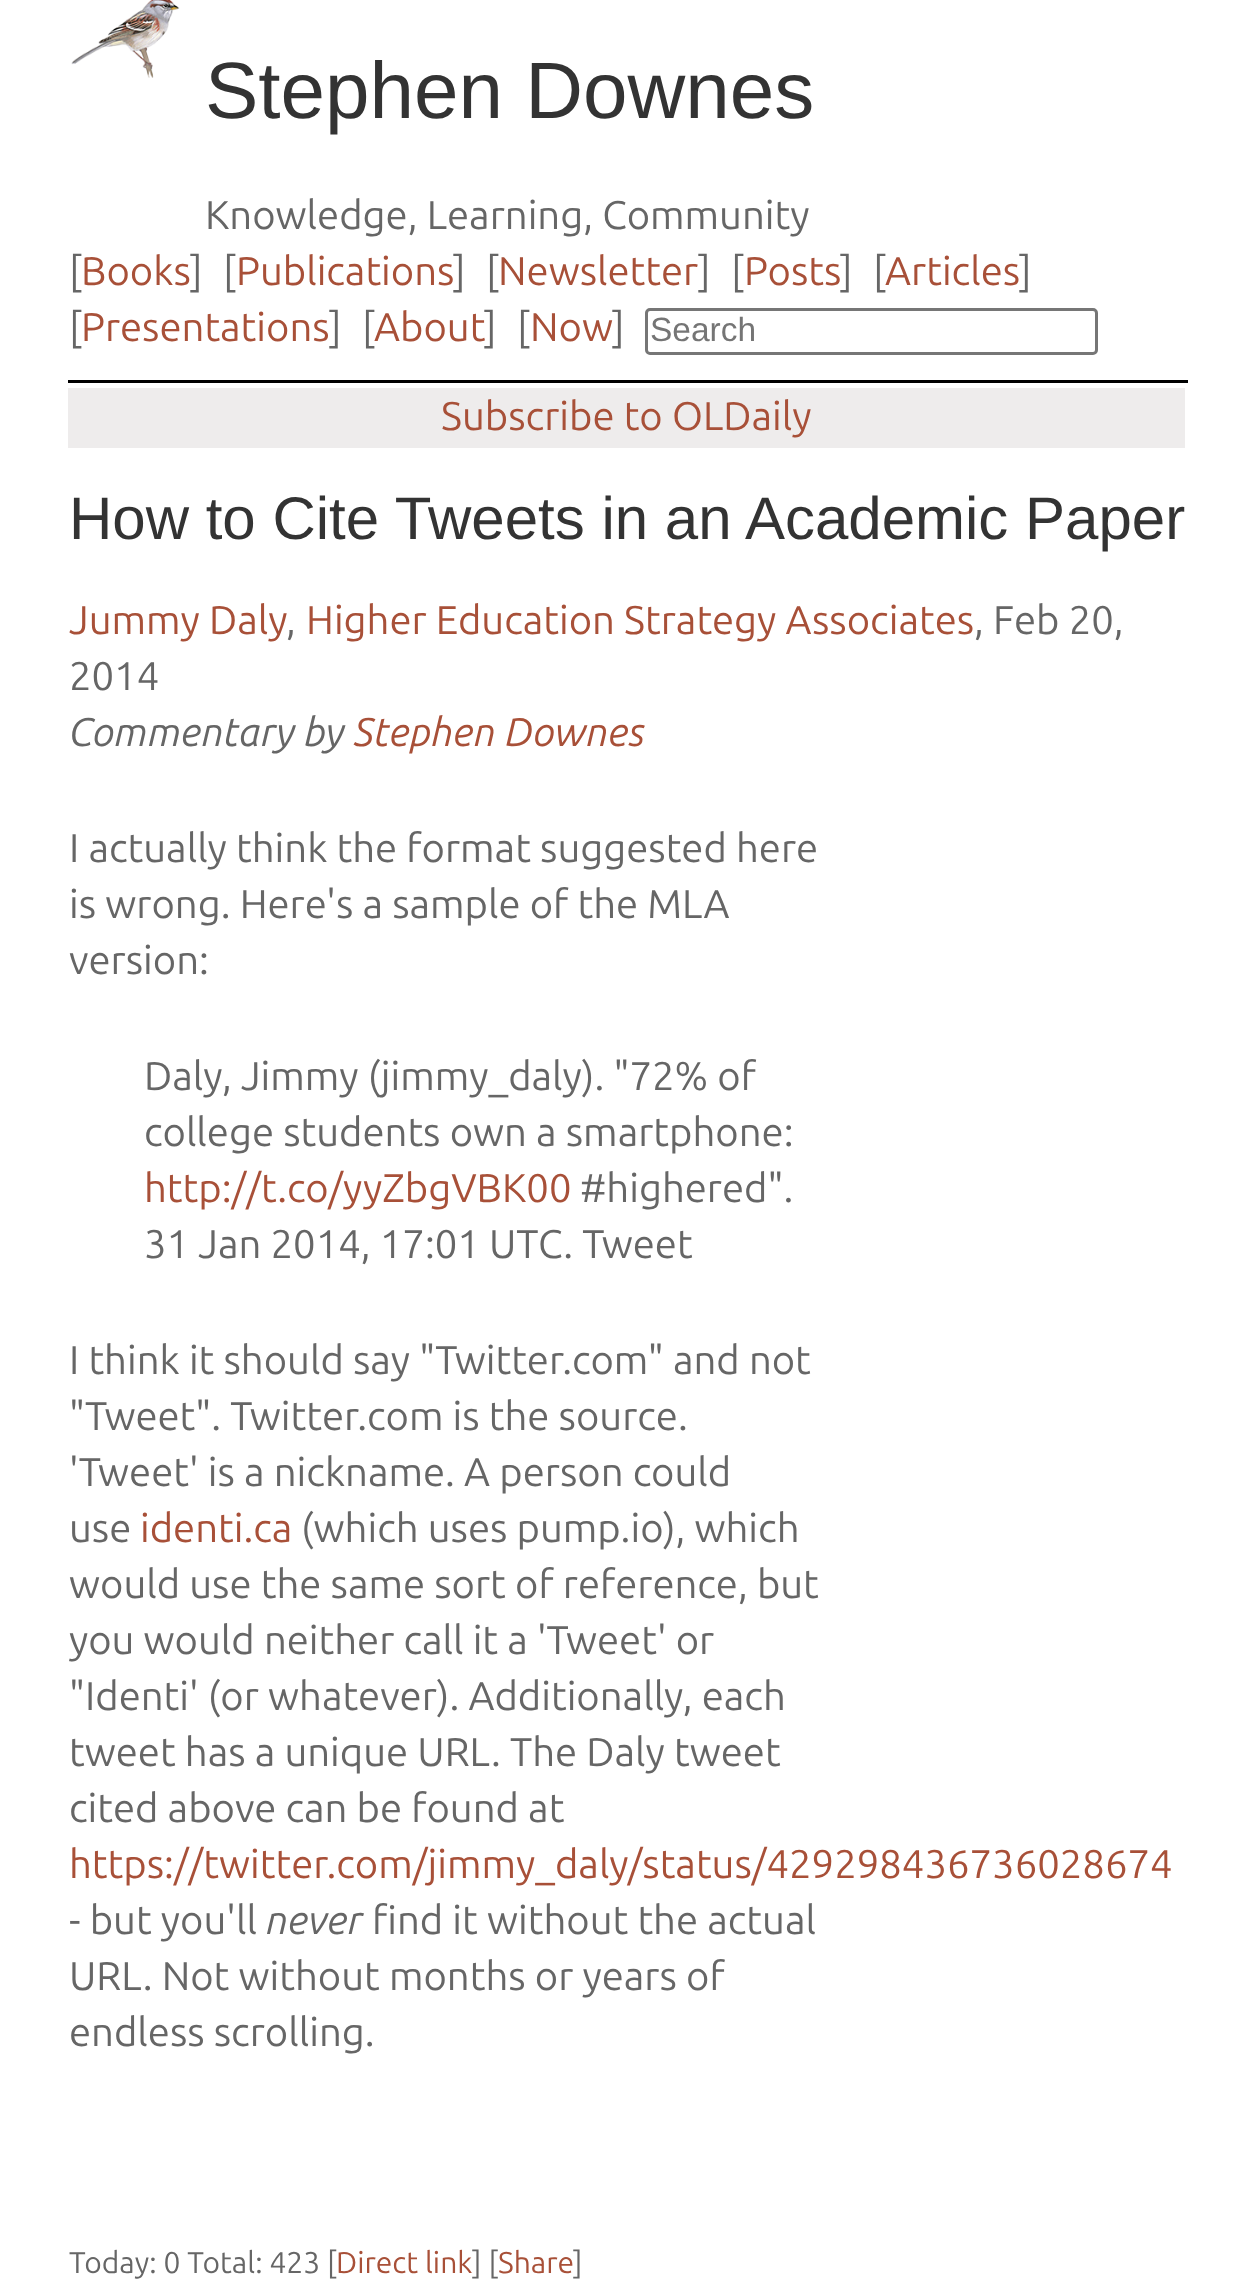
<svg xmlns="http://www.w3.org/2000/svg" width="1253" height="2295">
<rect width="100%" height="100%" fill="#fff"/>
<image x="71" y="0" width="109" height="78" href="media/1.png"/>
<text x="205" y="118" style="font-family:Liberation Sans;font-size:80px;fill:#333">Stephen Downes</text>
<text x="205" y="229" style="font-family:Ubuntu;font-size:40px;fill:#666">Knowledge, Learning, Community</text>
<rect x="68" y="380" width="1120" height="3" fill="#000"/>
<text x="69" y="285" style="font-family:Ubuntu;font-size:40px;fill:#666">[</text>
<text x="81" y="285" style="font-family:Ubuntu;font-size:40px;fill:#a85038">Books</text>
<text x="190" y="285" style="font-family:Ubuntu;font-size:40px;fill:#666">]</text>
<text x="223" y="285" style="font-family:Ubuntu;font-size:40px;fill:#666">[</text>
<text x="236" y="285" style="font-family:Ubuntu;font-size:40px;fill:#a85038">Publications</text>
<text x="453" y="285" style="font-family:Ubuntu;font-size:40px;fill:#666">]</text>
<text x="486" y="285" style="font-family:Ubuntu;font-size:40px;fill:#666">[</text>
<text x="498" y="285" style="font-family:Ubuntu;font-size:40px;fill:#a85038">Newsletter</text>
<text x="698" y="285" style="font-family:Ubuntu;font-size:40px;fill:#666">]</text>
<text x="731" y="285" style="font-family:Ubuntu;font-size:40px;fill:#666">[</text>
<text x="744" y="285" style="font-family:Ubuntu;font-size:40px;fill:#a85038">Posts</text>
<text x="840" y="285" style="font-family:Ubuntu;font-size:40px;fill:#666">]</text>
<text x="873" y="285" style="font-family:Ubuntu;font-size:40px;fill:#666">[</text>
<text x="885" y="285" style="font-family:Ubuntu;font-size:40px;fill:#a85038">Articles</text>
<text x="1019" y="285" style="font-family:Ubuntu;font-size:40px;fill:#666">]</text>
<text x="69" y="341" style="font-family:Ubuntu;font-size:40px;fill:#666">[</text>
<text x="81" y="341" style="font-family:Ubuntu;font-size:40px;fill:#a85038">Presentations</text>
<text x="329" y="341" style="font-family:Ubuntu;font-size:40px;fill:#666">]</text>
<text x="362" y="341" style="font-family:Ubuntu;font-size:40px;fill:#666">[</text>
<text x="374" y="341" style="font-family:Ubuntu;font-size:40px;fill:#a85038">About</text>
<text x="484" y="341" style="font-family:Ubuntu;font-size:40px;fill:#666">]</text>
<text x="517" y="341" style="font-family:Ubuntu;font-size:40px;fill:#666">[</text>
<text x="530" y="341" style="font-family:Ubuntu;font-size:40px;fill:#a85038">Now</text>
<text x="612" y="341" style="font-family:Ubuntu;font-size:40px;fill:#666">]</text>
<rect x="646.5" y="309.5" width="450" height="44" rx="3.5" fill="none" stroke="#767676" stroke-width="3"/>
<text x="650" y="341" style="font-family:Liberation Sans;font-size:33.5px;fill:#757575">Search</text>
<rect x="68" y="388" width="1117" height="60" fill="#eeecec"/>
<text x="441" y="430" style="font-family:Ubuntu;font-size:40px;fill:#a85038">Subscribe to OLDaily</text>
<text x="69" y="539" style="font-family:Liberation Sans;font-size:60px;fill:#333">How to Cite Tweets in an Academic Paper</text>
<text x="69" y="634" style="font-family:Ubuntu;font-size:40px;fill:#a85038">Jummy Daly</text>
<text x="286" y="634" style="font-family:Ubuntu;font-size:40px;fill:#666">,</text>
<text x="306" y="634" style="font-family:Ubuntu;font-size:40px;fill:#a85038">Higher Education Strategy Associates</text>
<text x="974" y="634" style="font-family:Ubuntu;font-size:40px;fill:#666">, Feb 20,</text>
<text x="69" y="690" style="font-family:Ubuntu;font-size:40px;fill:#666">2014</text>
<text x="69" y="746" style="font-family:Ubuntu;font-size:40px;font-style:italic;fill:#666">Commentary by</text>
<text x="354" y="746" style="font-family:Ubuntu;font-size:40px;font-style:italic;fill:#a85038">Stephen Downes</text>
<text x="69" y="862" style="font-family:Ubuntu;font-size:40px;fill:#666">I actually think the format suggested here</text>
<text x="69" y="918" style="font-family:Ubuntu;font-size:40px;fill:#666">is wrong. Here's a sample of the MLA</text>
<text x="69" y="974" style="font-family:Ubuntu;font-size:40px;fill:#666">version:</text>
<text x="144" y="1090" style="font-family:Ubuntu;font-size:40px;fill:#666">Daly, Jimmy (jimmy_daly). "72% of</text>
<text x="144" y="1146" style="font-family:Ubuntu;font-size:40px;fill:#666">college students own a smartphone:</text>
<text x="144" y="1202" style="font-family:Ubuntu;font-size:40px;fill:#a85038">http://t.co/yyZbgVBK00</text>
<text x="580" y="1202" style="font-family:Ubuntu;font-size:40px;fill:#666">#highered".</text>
<text x="144" y="1258" style="font-family:Ubuntu;font-size:40px;fill:#666">31 Jan 2014, 17:01 UTC. Tweet</text>
<text x="69" y="1374" style="font-family:Ubuntu;font-size:40px;fill:#666">I think it should say "Twitter.com" and not</text>
<text x="69" y="1430" style="font-family:Ubuntu;font-size:40px;fill:#666">"Tweet". Twitter.com is the source.</text>
<text x="69" y="1486" style="font-family:Ubuntu;font-size:40px;fill:#666">'Tweet' is a nickname. A person could</text>
<text x="69" y="1542" style="font-family:Ubuntu;font-size:40px;fill:#666">use</text>
<text x="140" y="1542" style="font-family:Ubuntu;font-size:40px;fill:#a85038">identi.ca</text>
<text x="301" y="1542" style="font-family:Ubuntu;font-size:40px;fill:#666">(which uses pump.io), which</text>
<text x="69" y="1598" style="font-family:Ubuntu;font-size:40px;fill:#666">would use the same sort of reference, but</text>
<text x="69" y="1654" style="font-family:Ubuntu;font-size:40px;fill:#666">you would neither call it a 'Tweet' or</text>
<text x="69" y="1710" style="font-family:Ubuntu;font-size:40px;fill:#666">"Identi' (or whatever). Additionally, each</text>
<text x="69" y="1766" style="font-family:Ubuntu;font-size:40px;fill:#666">tweet has a unique URL. The Daly tweet</text>
<text x="69" y="1822" style="font-family:Ubuntu;font-size:40px;fill:#666">cited above can be found at</text>
<text x="69" y="1878" style="font-family:Ubuntu;font-size:40px;fill:#a85038">https://twitter.com/jimmy_daly/status/429298436736028674</text>
<text x="69" y="1934" style="font-family:Ubuntu;font-size:40px;fill:#666">- but you'll</text>
<text x="266" y="1934" style="font-family:Ubuntu;font-size:40px;font-style:italic;fill:#666">never</text>
<text x="372" y="1934" style="font-family:Ubuntu;font-size:40px;fill:#666">find it without the actual</text>
<text x="69" y="1990" style="font-family:Ubuntu;font-size:40px;fill:#666">URL. Not without months or years of</text>
<text x="69" y="2046" style="font-family:Ubuntu;font-size:40px;fill:#666">endless scrolling.</text>
<text x="69" y="2273" style="font-family:Ubuntu;font-size:30px;fill:#666">Today: 0 Total: 423 [</text>
<text x="336" y="2273" style="font-family:Ubuntu;font-size:30px;fill:#a85038">Direct link</text>
<text x="472" y="2273" style="font-family:Ubuntu;font-size:30px;fill:#666">] [</text>
<text x="498" y="2273" style="font-family:Ubuntu;font-size:30px;fill:#a85038">Share</text>
<text x="573" y="2273" style="font-family:Ubuntu;font-size:30px;fill:#666">]</text>
</svg>
